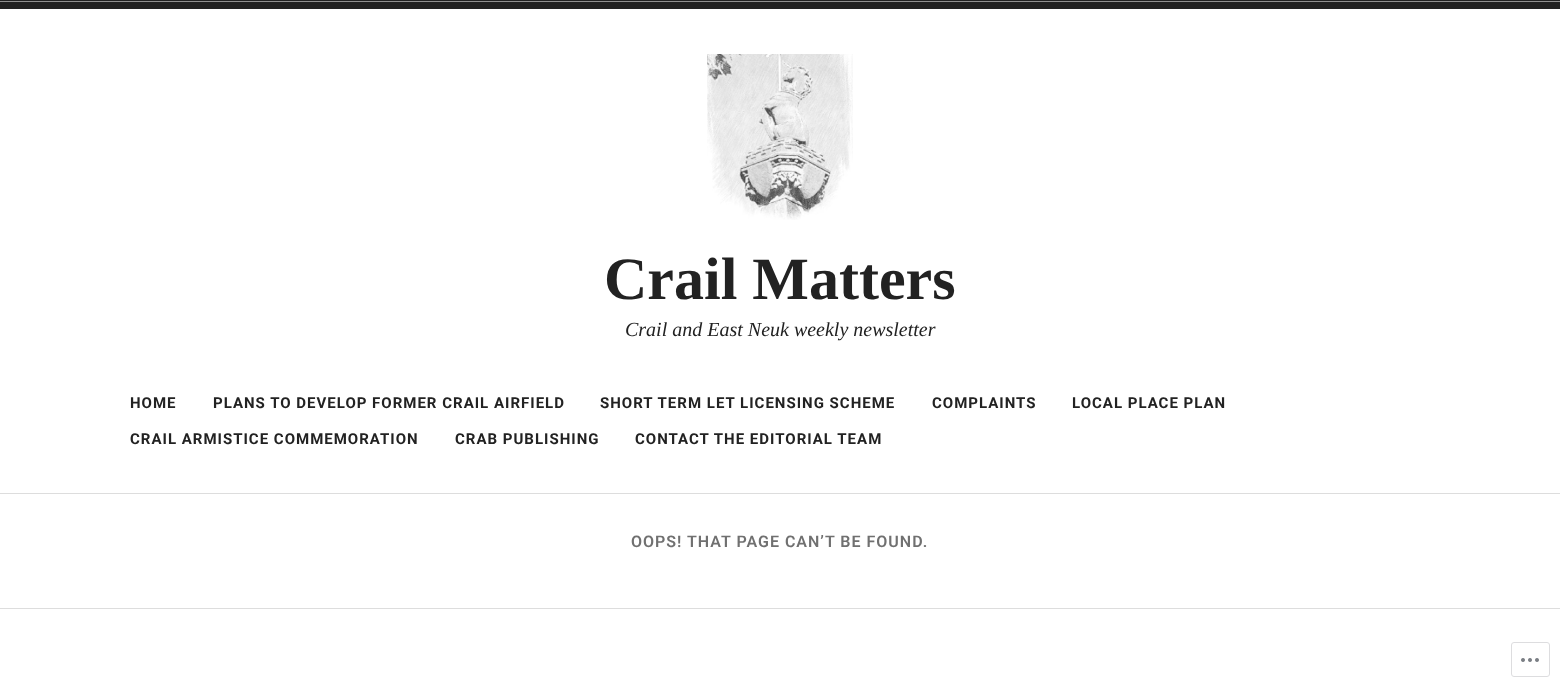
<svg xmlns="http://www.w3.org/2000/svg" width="1560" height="687">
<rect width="100%" height="100%" fill="#fff"/>
<rect width="1560" height="9" fill="#222"/>
<rect y="1" width="1560" height="1" fill="#919191"/>
<image x="707" y="54" width="146" height="166" href="media/1.png"/>
<text x="604" y="299" style="font-family:Liberation Serif;font-size:60px;font-weight:bold;fill:#222">Crail Matters</text>
<text x="625" y="336" style="font-family:Liberation Serif;font-size:20px;font-style:italic;fill:#222">Crail and East Neuk weekly newsletter</text>
<text x="130" y="408" style="font-family:Roboto;font-size:15px;font-weight:bold;letter-spacing:1px;fill:#222">HOME</text>
<text x="213" y="408" style="font-family:Roboto;font-size:15px;font-weight:bold;letter-spacing:1px;fill:#222">PLANS TO DEVELOP FORMER CRAIL AIRFIELD</text>
<text x="600" y="408" style="font-family:Roboto;font-size:15px;font-weight:bold;letter-spacing:1px;fill:#222">SHORT TERM LET LICENSING SCHEME</text>
<text x="932" y="408" style="font-family:Roboto;font-size:15px;font-weight:bold;letter-spacing:1px;fill:#222">COMPLAINTS</text>
<text x="1072" y="408" style="font-family:Roboto;font-size:15px;font-weight:bold;letter-spacing:1px;fill:#222">LOCAL PLACE PLAN</text>
<text x="130" y="444" style="font-family:Roboto;font-size:15px;font-weight:bold;letter-spacing:1px;fill:#222">CRAIL ARMISTICE COMMEMORATION</text>
<text x="455" y="444" style="font-family:Roboto;font-size:15px;font-weight:bold;letter-spacing:1px;fill:#222">CRAB PUBLISHING</text>
<text x="635" y="444" style="font-family:Roboto;font-size:15px;font-weight:bold;letter-spacing:1px;fill:#222">CONTACT THE EDITORIAL TEAM</text>
<rect y="493" width="1560" height="1" fill="#ddd"/>
<rect y="608" width="1560" height="1" fill="#ddd"/>
<text x="631" y="547" style="font-family:Roboto;font-size:16px;font-weight:600;letter-spacing:1px;fill:#707070">OOPS! THAT PAGE CAN’T BE FOUND.</text>
<rect x="1511.5" y="642.5" width="38" height="34" rx="2.5" fill="none" stroke="#dddddf"/>
<image x="1521" y="658" width="18" height="4" href="media/2.png"/>
</svg>
